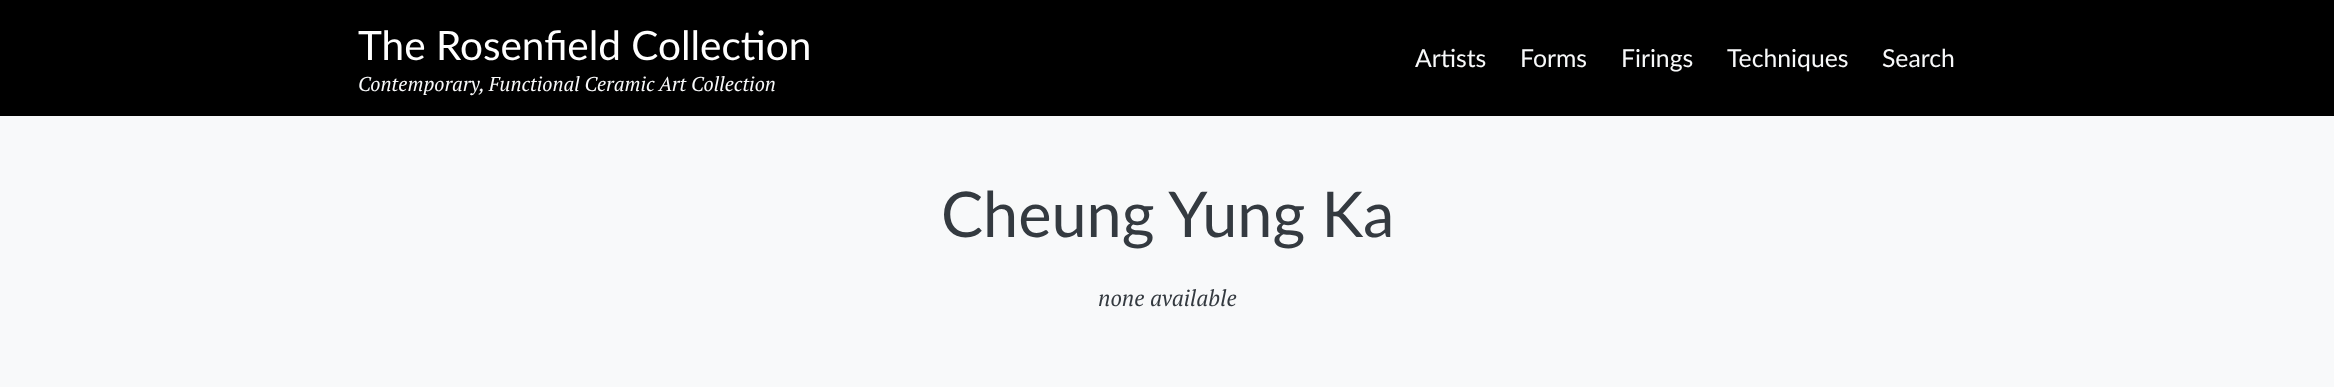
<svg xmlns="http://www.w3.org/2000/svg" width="2334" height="387">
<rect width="100%" height="100%" fill="#f8f9fa"/>
<rect width="2334" height="116" fill="#000"/>
<text x="358" y="60" style="font-family:Lato;font-size:40.5px;fill:#fff">The Rosenfield Collection</text>
<text x="358" y="91" style="font-family:PT Serif;font-size:20px;font-style:italic;fill:#f8f9fa">Contemporary, Functional Ceramic Art Collection</text>
<text x="1415" y="67" style="font-family:Lato;font-size:24.75px;fill:#f8f9fa">Artists</text>
<text x="1520" y="67" style="font-family:Lato;font-size:24.75px;fill:#f8f9fa">Forms</text>
<text x="1621" y="67" style="font-family:Lato;font-size:24.75px;fill:#f8f9fa">Firings</text>
<text x="1727" y="67" style="font-family:Lato;font-size:24.75px;fill:#f8f9fa">Techniques</text>
<text x="1882" y="67" style="font-family:Lato;font-size:24.75px;fill:#f8f9fa">Search</text>
<text x="941" y="237" style="font-family:Lato;font-size:63px;fill:#343a40">Cheung Yung Ka</text>
<text x="1098" y="306" style="font-family:PT Serif;font-size:22.5px;font-style:italic;fill:#343a40">none available</text>
</svg>
